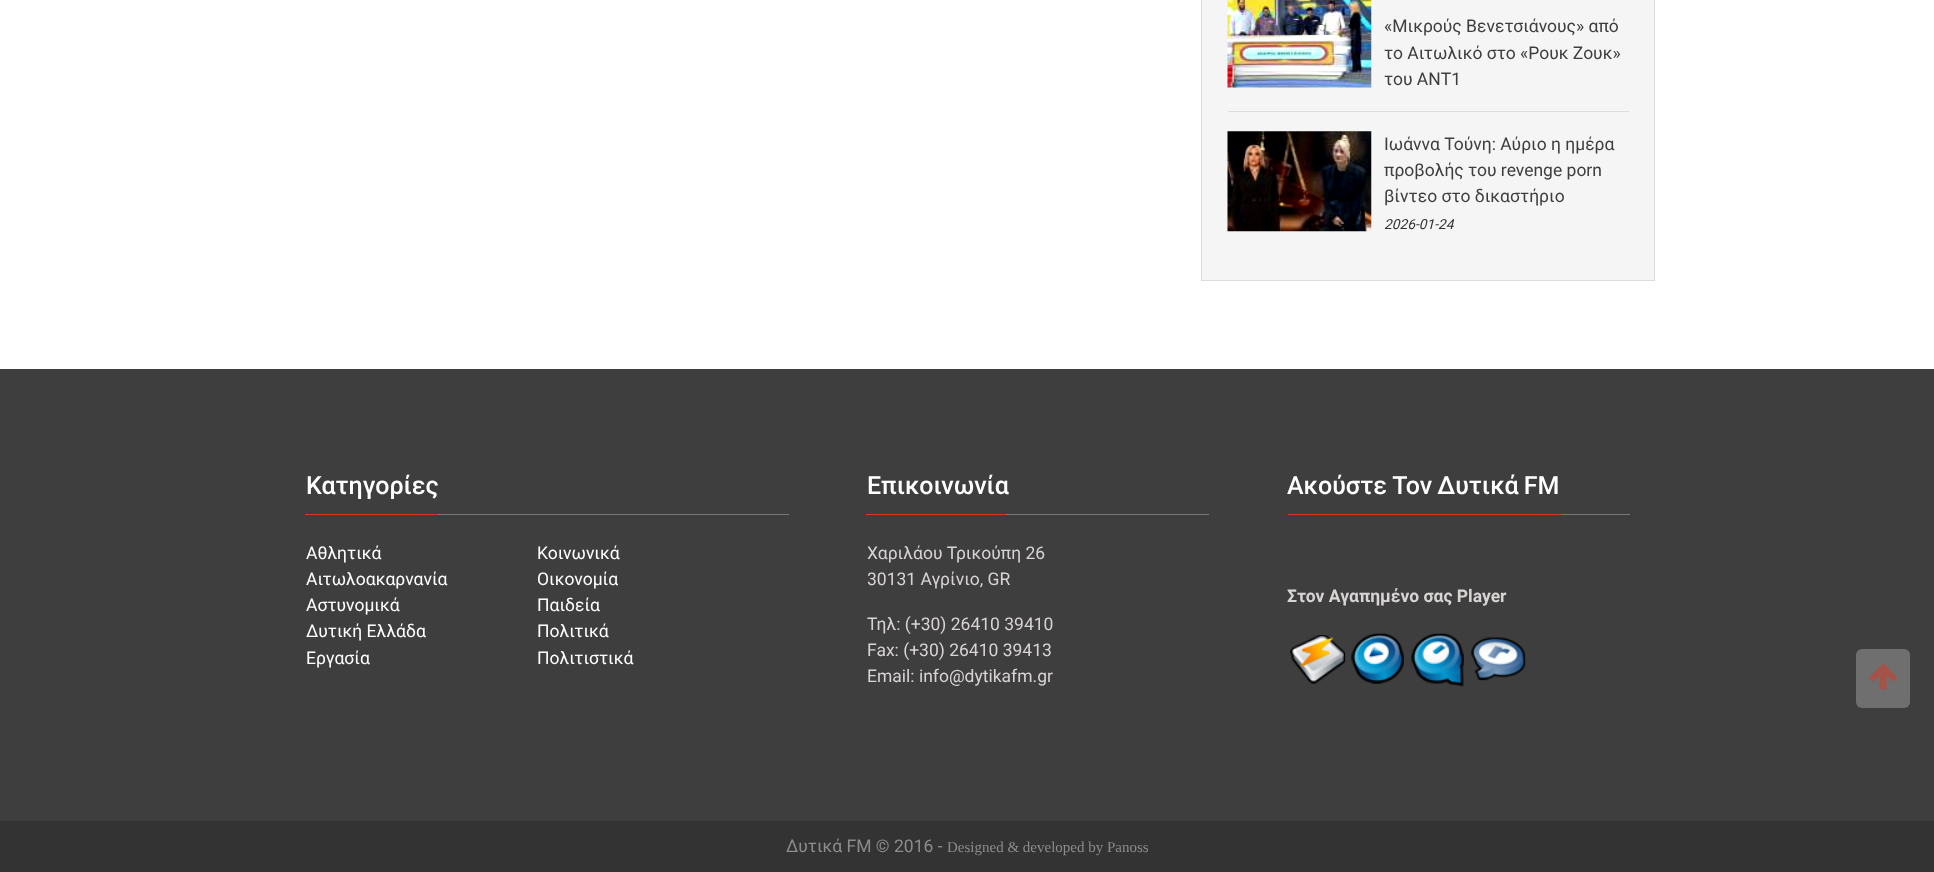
<svg xmlns="http://www.w3.org/2000/svg" width="1934" height="872">
<rect width="100%" height="100%" fill="#fff"/>
<rect x="1201.5" y="-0.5" width="453" height="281" fill="#f5f5f5" stroke="#ddd"/>
<rect x="1228" y="111" width="401" height="1" fill="#ddd"/>
<image x="1227" y="0" width="145" height="88" href="media/1.png"/>
<text x="1384" y="32" style="font-family:Roboto;font-size:17.5px;fill:#3e3e3e">«Μικρούς Βενετσιάνους» από</text>
<text x="1384" y="59" style="font-family:Roboto;font-size:17.5px;fill:#3e3e3e">το Αιτωλικό στο «Ρουκ Ζουκ»</text>
<text x="1384" y="85" style="font-family:Roboto;font-size:17.5px;fill:#3e3e3e">του ΑΝΤ1</text>
<image x="1227" y="131" width="145" height="101" href="media/2.png"/>
<text x="1384" y="150" style="font-family:Roboto;font-size:17.5px;fill:#3e3e3e">Ιωάννα Τούνη: Αύριο η ημέρα</text>
<text x="1384" y="176" style="font-family:Roboto;font-size:17.5px;fill:#3e3e3e">προβολής του revenge porn</text>
<text x="1384" y="202" style="font-family:Roboto;font-size:17.5px;fill:#3e3e3e">βίντεο στο δικαστήριο</text>
<text x="1384" y="229" style="font-family:Roboto;font-size:13.75px;font-style:italic;fill:#333">2026-01-24</text>
<rect y="369" width="1934" height="452" fill="#3e3e3e"/>
<rect x="438" y="514" width="351" height="1" fill="#787878"/>
<rect x="305" y="514" width="133" height="1" fill="#dc3522"/>
<text x="306" y="494" style="font-family:Roboto;font-size:25px;font-weight:500;fill:#fff">Κατηγορίες</text>
<text x="306" y="559" style="font-family:Roboto;font-size:17.5px;fill:#fff">Αθλητικά</text>
<text x="306" y="585" style="font-family:Roboto;font-size:17.5px;fill:#fff">Αιτωλοακαρνανία</text>
<text x="306" y="611" style="font-family:Roboto;font-size:17.5px;fill:#fff">Αστυνομικά</text>
<text x="306" y="637" style="font-family:Roboto;font-size:17.5px;fill:#fff">Δυτική Ελλάδα</text>
<text x="306" y="664" style="font-family:Roboto;font-size:17.5px;fill:#fff">Εργασία</text>
<text x="537" y="559" style="font-family:Roboto;font-size:17.5px;fill:#fff">Κοινωνικά</text>
<text x="537" y="585" style="font-family:Roboto;font-size:17.5px;fill:#fff">Οικονομία</text>
<text x="537" y="611" style="font-family:Roboto;font-size:17.5px;fill:#fff">Παιδεία</text>
<text x="537" y="637" style="font-family:Roboto;font-size:17.5px;fill:#fff">Πολιτικά</text>
<text x="537" y="664" style="font-family:Roboto;font-size:17.5px;fill:#fff">Πολιτιστικά</text>
<rect x="1006" y="514" width="203" height="1" fill="#787878"/>
<rect x="866" y="514" width="140" height="1" fill="#dc3522"/>
<text x="867" y="494" style="font-family:Roboto;font-size:25px;font-weight:500;fill:#fff">Επικοινωνία</text>
<text x="867" y="559" style="font-family:Roboto;font-size:17.5px;fill:#d9d4d4">Χαριλάου Τρικούπη 26</text>
<text x="867" y="585" style="font-family:Roboto;font-size:17.5px;fill:#d9d4d4">30131 Αγρίνιο, GR</text>
<text x="867" y="630" style="font-family:Roboto;font-size:17.5px;fill:#d9d4d4">Τηλ: (+30) 26410 39410</text>
<text x="867" y="656" style="font-family:Roboto;font-size:17.5px;fill:#d9d4d4">Fax: (+30) 26410 39413</text>
<text x="867" y="682" style="font-family:Roboto;font-size:17.5px;fill:#d9d4d4">Email: info@dytikafm.gr</text>
<rect x="1561" y="514" width="69" height="1" fill="#787878"/>
<rect x="1288" y="514" width="273" height="1" fill="#dc3522"/>
<text x="1287" y="494" word-spacing="-1" style="font-family:Roboto;font-size:25px;font-weight:500;fill:#fff">Ακούστε Τον Δυτικά FM</text>
<text x="1287" y="602" style="font-family:Roboto;font-size:17.5px;font-weight:bold;fill:#d9d4d4">Στον Αγαπημένο σας Player</text>
<image x="1290" y="635" width="56" height="49" href="media/3.png"/>
<image x="1351" y="633" width="53" height="51" href="media/4.png"/>
<image x="1411" y="633" width="53" height="54" href="media/5.png"/>
<image x="1471" y="637" width="55" height="44" href="media/6.png"/>
<rect y="821" width="1934" height="51" fill="#333"/>
<text x="786" y="852" style="font-family:Roboto;font-size:17.5px;fill:#8c8c8c">Δυτικά FM © 2016 -</text>
<text x="947" y="852" style="font-family:Liberation Serif;font-size:15px;fill:#8c8c8c">Designed &amp; developed by Panoss</text>
<rect x="1856" y="649" width="54" height="59" rx="6" fill="#6f6f6f"/>
<image x="1869" y="664" width="28" height="26" href="media/7.png"/>
</svg>
